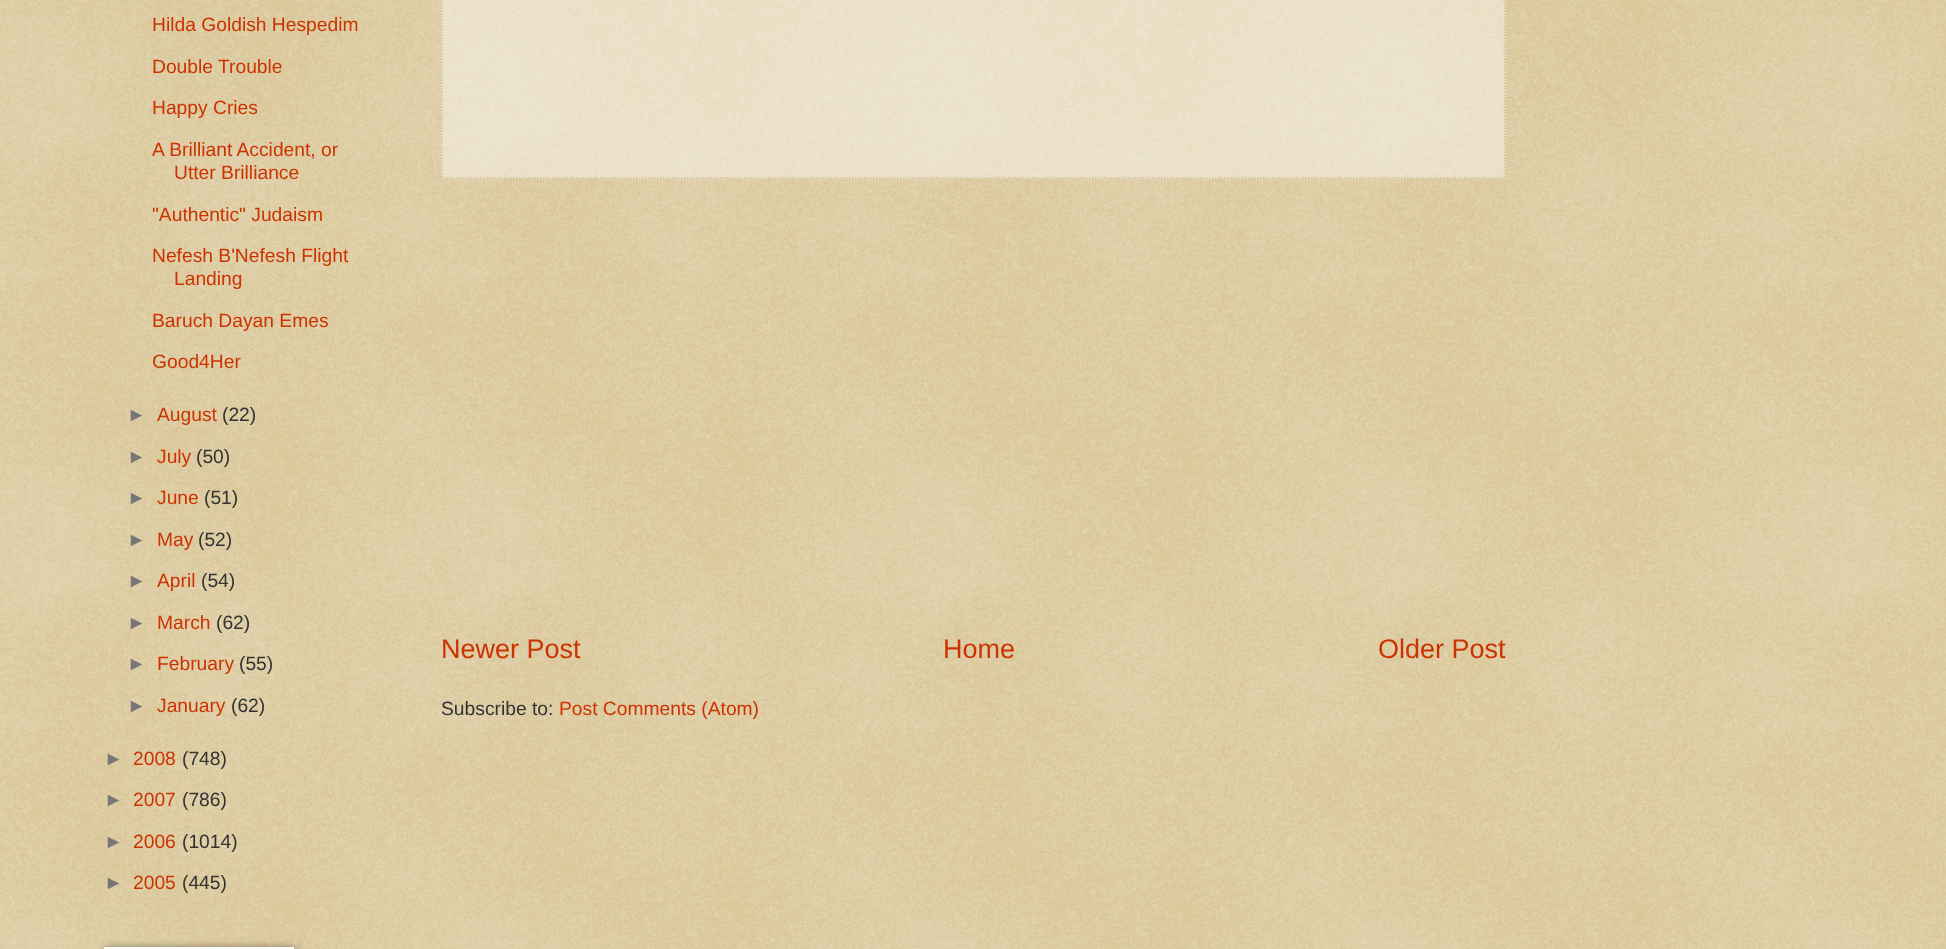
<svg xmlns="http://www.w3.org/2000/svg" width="1946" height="949">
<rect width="100%" height="100%" fill="#c0a154"/>
<image x="0" y="0" width="1946" height="949" href="media/1.png"/>
<text x="152" y="31" style="font-family:Liberation Sans;font-size:19.25px;fill:#c30">Hilda Goldish Hespedim</text>
<text x="152" y="73" style="font-family:Liberation Sans;font-size:19.25px;fill:#c30">Double Trouble</text>
<text x="152" y="114" style="font-family:Liberation Sans;font-size:19.25px;fill:#c30">Happy Cries</text>
<text x="152" y="156" style="font-family:Liberation Sans;font-size:19.25px;fill:#c30">A Brilliant Accident, or</text>
<text x="174" y="179" style="font-family:Liberation Sans;font-size:19.25px;fill:#c30">Utter Brilliance</text>
<text x="152" y="221" style="font-family:Liberation Sans;font-size:19.25px;fill:#c30">"Authentic" Judaism</text>
<text x="152" y="262" style="font-family:Liberation Sans;font-size:19.25px;fill:#c30">Nefesh B'Nefesh Flight</text>
<text x="174" y="285" style="font-family:Liberation Sans;font-size:19.25px;fill:#c30">Landing</text>
<text x="152" y="327" style="font-family:Liberation Sans;font-size:19.25px;fill:#c30">Baruch Dayan Emes</text>
<text x="152" y="368" style="font-family:Liberation Sans;font-size:19.25px;fill:#c30">Good4Her</text>
<text x="127" y="421" style="font-family:Liberation Sans;font-size:19.25px;fill:#777">►</text>
<text x="157" y="421" style="font-family:Liberation Sans;font-size:19.25px;fill:#c30">August</text>
<text x="222" y="421" style="font-family:Liberation Sans;font-size:19.25px;fill:#333">(22)</text>
<text x="127" y="463" style="font-family:Liberation Sans;font-size:19.25px;fill:#777">►</text>
<text x="157" y="463" style="font-family:Liberation Sans;font-size:19.25px;fill:#c30">July</text>
<text x="196" y="463" style="font-family:Liberation Sans;font-size:19.25px;fill:#333">(50)</text>
<text x="127" y="504" style="font-family:Liberation Sans;font-size:19.25px;fill:#777">►</text>
<text x="157" y="504" style="font-family:Liberation Sans;font-size:19.25px;fill:#c30">June</text>
<text x="204" y="504" style="font-family:Liberation Sans;font-size:19.25px;fill:#333">(51)</text>
<text x="127" y="546" style="font-family:Liberation Sans;font-size:19.25px;fill:#777">►</text>
<text x="157" y="546" style="font-family:Liberation Sans;font-size:19.25px;fill:#c30">May</text>
<text x="198" y="546" style="font-family:Liberation Sans;font-size:19.25px;fill:#333">(52)</text>
<text x="127" y="587" style="font-family:Liberation Sans;font-size:19.25px;fill:#777">►</text>
<text x="157" y="587" style="font-family:Liberation Sans;font-size:19.25px;fill:#c30">April</text>
<text x="201" y="587" style="font-family:Liberation Sans;font-size:19.25px;fill:#333">(54)</text>
<text x="127" y="629" style="font-family:Liberation Sans;font-size:19.25px;fill:#777">►</text>
<text x="157" y="629" style="font-family:Liberation Sans;font-size:19.25px;fill:#c30">March</text>
<text x="216" y="629" style="font-family:Liberation Sans;font-size:19.25px;fill:#333">(62)</text>
<text x="127" y="670" style="font-family:Liberation Sans;font-size:19.25px;fill:#777">►</text>
<text x="157" y="670" style="font-family:Liberation Sans;font-size:19.25px;fill:#c30">February</text>
<text x="239" y="670" style="font-family:Liberation Sans;font-size:19.25px;fill:#333">(55)</text>
<text x="127" y="712" style="font-family:Liberation Sans;font-size:19.25px;fill:#777">►</text>
<text x="157" y="712" style="font-family:Liberation Sans;font-size:19.25px;fill:#c30">January</text>
<text x="231" y="712" style="font-family:Liberation Sans;font-size:19.25px;fill:#333">(62)</text>
<text x="104" y="765" style="font-family:Liberation Sans;font-size:19.25px;fill:#777">►</text>
<text x="133" y="765" style="font-family:Liberation Sans;font-size:19.25px;fill:#c30">2008</text>
<text x="182" y="765" style="font-family:Liberation Sans;font-size:19.25px;fill:#333">(748)</text>
<text x="104" y="806" style="font-family:Liberation Sans;font-size:19.25px;fill:#777">►</text>
<text x="133" y="806" style="font-family:Liberation Sans;font-size:19.25px;fill:#c30">2007</text>
<text x="182" y="806" style="font-family:Liberation Sans;font-size:19.25px;fill:#333">(786)</text>
<text x="104" y="848" style="font-family:Liberation Sans;font-size:19.25px;fill:#777">►</text>
<text x="133" y="848" style="font-family:Liberation Sans;font-size:19.25px;fill:#c30">2006</text>
<text x="182" y="848" style="font-family:Liberation Sans;font-size:19.25px;fill:#333">(1014)</text>
<text x="104" y="889" style="font-family:Liberation Sans;font-size:19.25px;fill:#777">►</text>
<text x="133" y="889" style="font-family:Liberation Sans;font-size:19.25px;fill:#c30">2005</text>
<text x="182" y="889" style="font-family:Liberation Sans;font-size:19.25px;fill:#333">(445)</text>
<rect x="105" y="948" width="191" height="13" fill="#00000080" filter="blur(4px)"/>
<rect x="104" y="947" width="190" height="2" fill="#fff"/>
<rect x="441" width="1065" height="179" fill="#ffffff66"/>
<path d="M1505-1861.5v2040" fill="none" stroke="#cb9" stroke-width="1.5" stroke-dasharray="1.5 1.5"/>
<path d="M441 178h1065" fill="none" stroke="#cb9" stroke-width="1.5" stroke-dasharray="1.5 1.5"/>
<path d="M442-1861.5v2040" fill="none" stroke="#cb9" stroke-width="1.5" stroke-dasharray="1.5 1.5"/>
<text x="441" y="658" style="font-family:Liberation Sans;font-size:27px;fill:#c30">Newer Post</text>
<text x="943" y="658" style="font-family:Liberation Sans;font-size:27px;fill:#c30">Home</text>
<text x="1378" y="658" style="font-family:Liberation Sans;font-size:27px;fill:#c30">Older Post</text>
<text x="441" y="715" style="font-family:Liberation Sans;font-size:19.25px;fill:#333">Subscribe to:</text>
<text x="559" y="715" style="font-family:Liberation Sans;font-size:19.25px;fill:#c30">Post Comments (Atom)</text>
</svg>
